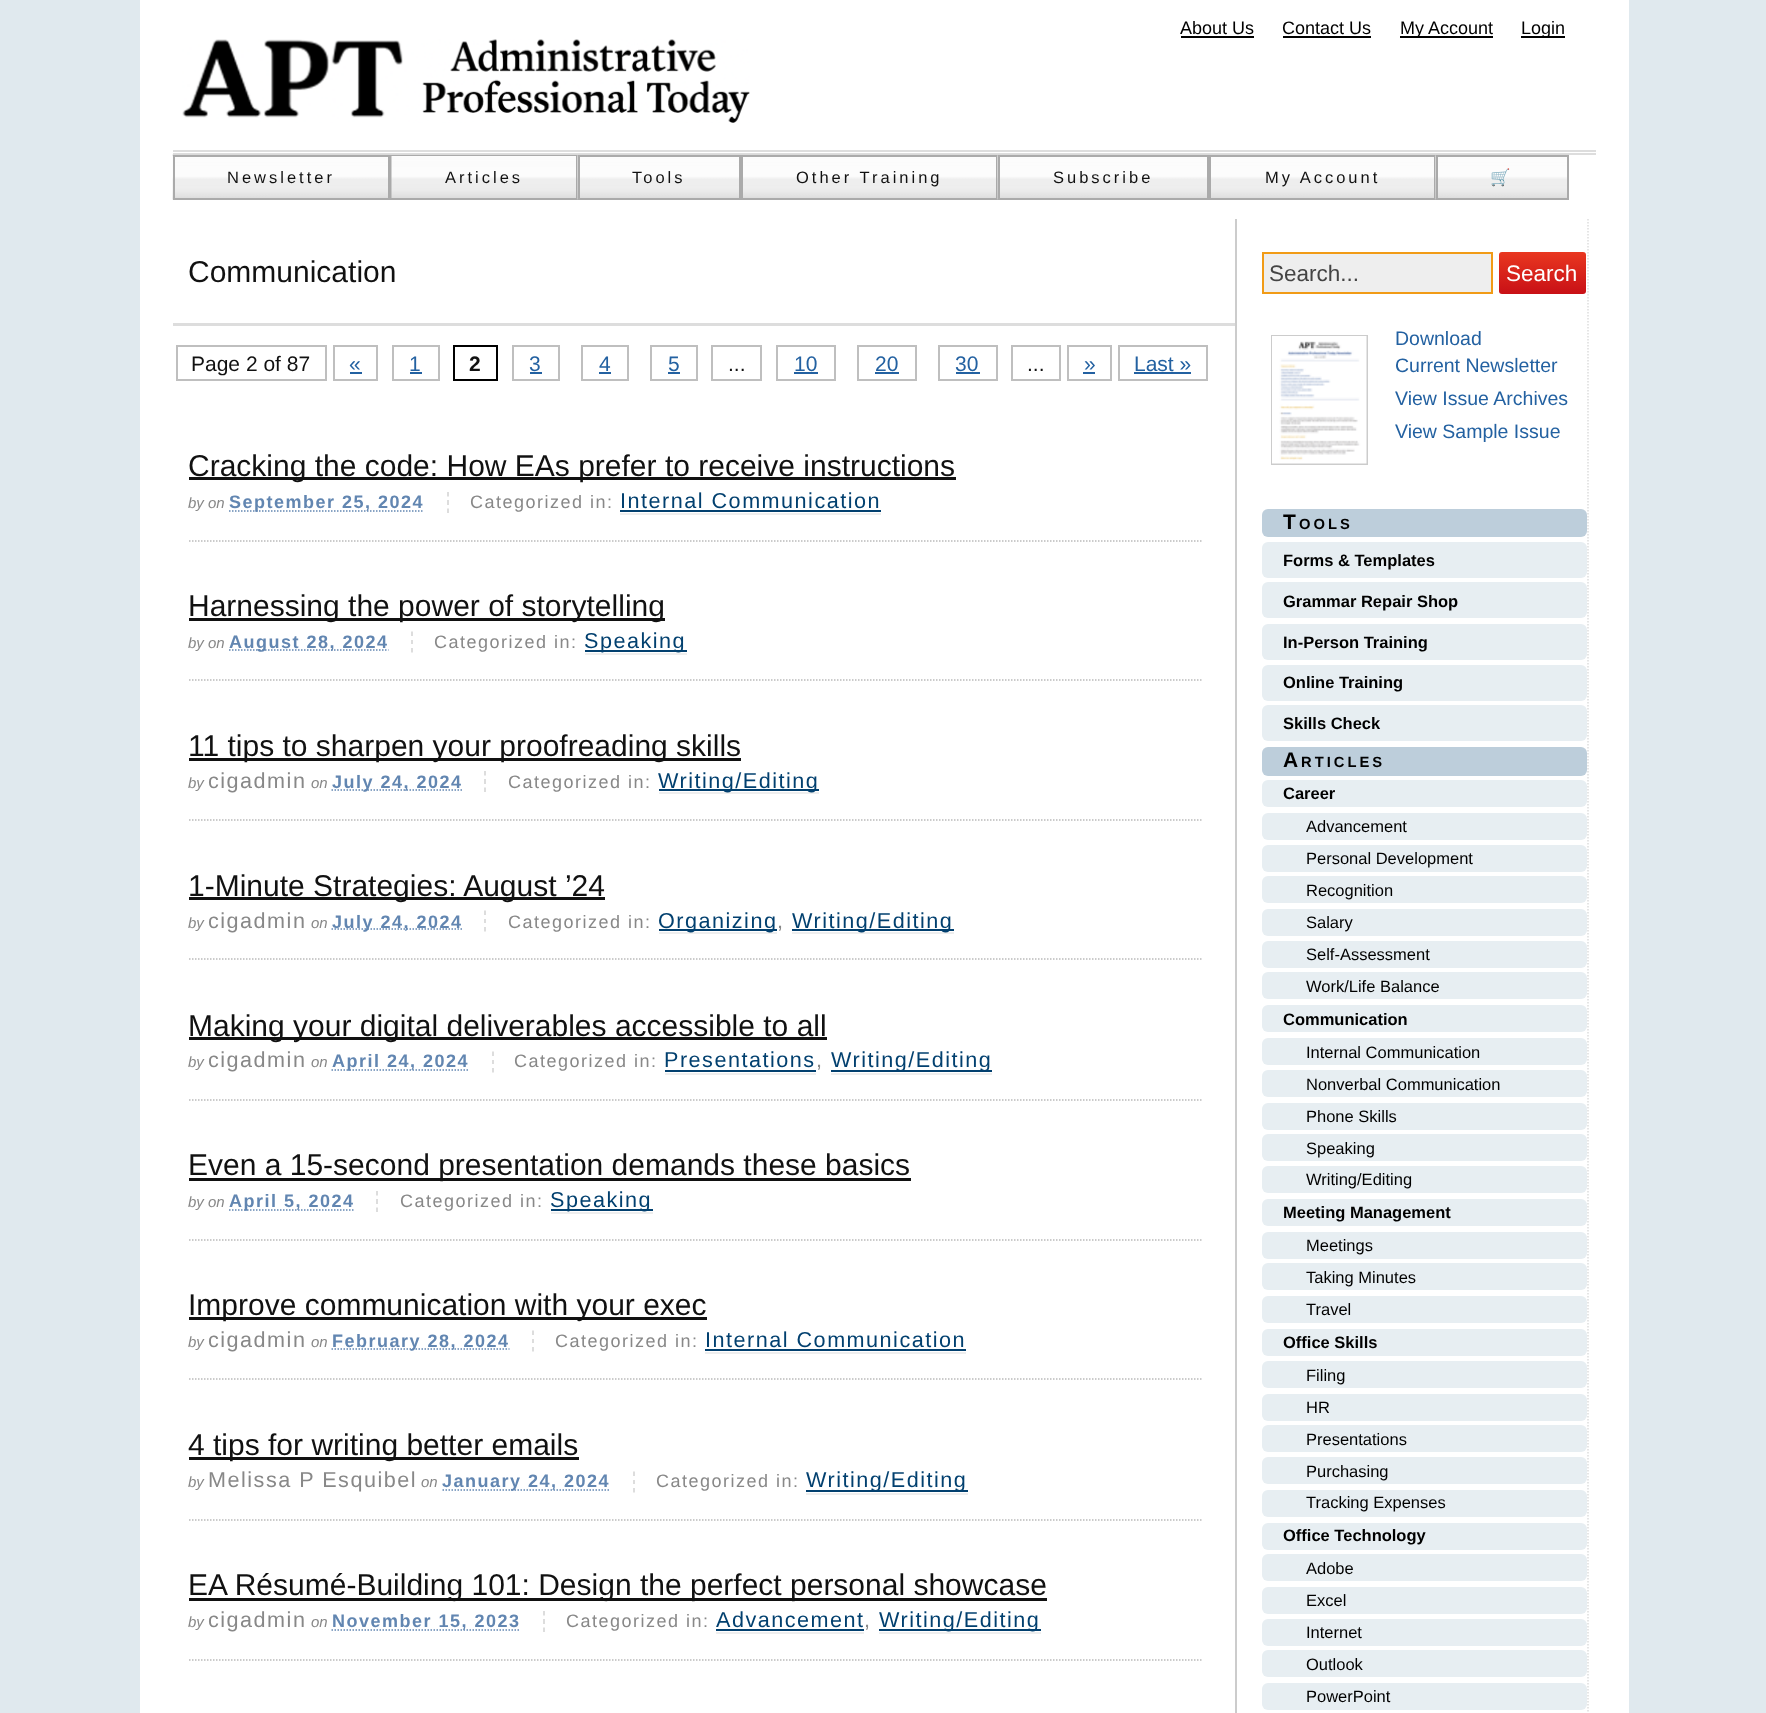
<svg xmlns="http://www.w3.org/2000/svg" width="1766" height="1713">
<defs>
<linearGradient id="g1" gradientUnits="userSpaceOnUse" x1="1542" y1="252" x2="1542" y2="294"><stop offset="0" stop-color="#e93720"/><stop offset="1" stop-color="#c81016"/></linearGradient>
</defs>
<rect width="100%" height="100%" fill="#e0e9ee"/>
<rect x="140" width="1489" height="1713" fill="#fff"/>
<text x="1180" y="34" style="font-family:Liberation Sans;font-size:18px;fill:#000">About Us</text>
<rect x="1181" y="36" width="73" height="2" fill="#000"/>
<text x="1282" y="34" style="font-family:Liberation Sans;font-size:18px;fill:#000">Contact Us</text>
<rect x="1283" y="36" width="88" height="2" fill="#000"/>
<rect x="1400" y="36" width="93" height="2" fill="#000"/>
<text x="1400" y="34" style="font-family:Liberation Sans;font-size:18px;fill:#000">My Account</text>
<rect x="1521" y="36" width="44" height="2" fill="#000"/>
<text x="1521" y="34" style="font-family:Liberation Sans;font-size:18px;fill:#000">Login</text>
<image x="182" y="39" width="568" height="84" href="media/1.png"/>
<rect x="173" y="150" width="1423" height="2" fill="#ddd"/>
<rect x="173" y="153" width="1423" height="2" fill="#ddd"/>
<image x="172" y="154" width="218" height="46" href="media/2.png"/>
<rect x="174" y="156" width="215" height="43" fill="none" stroke="#aaa" stroke-width="2"/>
<text x="227" y="183" style="font-family:Liberation Sans;font-size:16.5px;letter-spacing:3px;fill:#111">Newsletter</text>
<image x="390" y="154" width="188" height="1" href="media/3.png"/>
<rect x="391" y="156" width="186" height="43" fill="none" stroke="#aaa" stroke-width="2"/>
<image x="391" y="156" width="185" height="42" href="media/4.png"/>
<text x="445" y="183" style="font-family:Liberation Sans;font-size:16.5px;letter-spacing:3px;fill:#111">Articles</text>
<image x="577" y="154" width="164" height="46" href="media/5.png"/>
<rect x="579" y="156" width="161" height="43" fill="none" stroke="#aaa" stroke-width="2"/>
<text x="632" y="183" style="font-family:Liberation Sans;font-size:16.5px;letter-spacing:3px;fill:#111">Tools</text>
<image x="741" y="154" width="257" height="44" href="media/6.png"/>
<rect x="742" y="156" width="255" height="43" fill="none" stroke="#aaa" stroke-width="2"/>
<text x="796" y="183" style="font-family:Liberation Sans;font-size:16.5px;letter-spacing:3px;fill:#111">Other Training</text>
<image x="997" y="154" width="212" height="46" href="media/7.png"/>
<rect x="999" y="156" width="209" height="43" fill="none" stroke="#aaa" stroke-width="2"/>
<text x="1053" y="183" style="font-family:Liberation Sans;font-size:16.5px;letter-spacing:3px;fill:#111">Subscribe</text>
<image x="1209" y="154" width="227" height="44" href="media/8.png"/>
<rect x="1210" y="156" width="225" height="43" fill="none" stroke="#aaa" stroke-width="2"/>
<text x="1265" y="183" style="font-family:Liberation Sans;font-size:16.5px;letter-spacing:3px;fill:#111">My Account</text>
<image x="1435" y="154" width="134" height="46" href="media/9.png"/>
<rect x="1437" y="156" width="131" height="43" fill="none" stroke="#aaa" stroke-width="2"/>
<text x="1490" y="183" style="font-family:Noto Color Emoji;font-size:16.5px;letter-spacing:3px;fill:#111">🛒</text>
<rect x="1235" y="219" width="2" height="1494" fill="#ccc"/>
<rect x="173" y="323" width="1062" height="3" fill="#ddd"/>
<text x="188" y="282" style="font-family:Liberation Sans;font-size:30px;fill:#111">Communication</text>
<rect x="177" y="346" width="149" height="34" fill="none" stroke="#bfbfbf" stroke-width="2"/>
<text x="191" y="371" style="font-family:Liberation Sans;font-size:21px;fill:#111">Page 2 of 87</text>
<rect x="334" y="346" width="43" height="34" fill="none" stroke="#bfbfbf" stroke-width="2"/>
<text x="349" y="371" style="font-family:Liberation Sans;font-size:21px;fill:#2361a1">«</text>
<rect x="350" y="372" width="12" height="2" fill="#2361a1"/>
<rect x="393" y="346" width="46" height="34" fill="none" stroke="#bfbfbf" stroke-width="2"/>
<text x="409" y="371" style="font-family:Liberation Sans;font-size:21px;fill:#2361a1">1</text>
<rect x="410" y="372" width="12" height="2" fill="#2361a1"/>
<rect x="454" y="346" width="43" height="34" fill="none" stroke="#000" stroke-width="2"/>
<text x="469" y="371" style="font-family:Liberation Sans;font-size:21px;font-weight:bold;fill:#111">2</text>
<rect x="513" y="346" width="46" height="34" fill="none" stroke="#bfbfbf" stroke-width="2"/>
<text x="529" y="371" style="font-family:Liberation Sans;font-size:21px;fill:#2361a1">3</text>
<rect x="530" y="372" width="12" height="2" fill="#2361a1"/>
<rect x="582" y="346" width="46" height="34" fill="none" stroke="#bfbfbf" stroke-width="2"/>
<text x="599" y="371" style="font-family:Liberation Sans;font-size:21px;fill:#2361a1">4</text>
<rect x="599" y="372" width="12" height="2" fill="#2361a1"/>
<rect x="651" y="346" width="46" height="34" fill="none" stroke="#bfbfbf" stroke-width="2"/>
<text x="668" y="371" style="font-family:Liberation Sans;font-size:21px;fill:#2361a1">5</text>
<rect x="668" y="372" width="12" height="2" fill="#2361a1"/>
<rect x="712" y="346" width="49" height="34" fill="none" stroke="#bfbfbf" stroke-width="2"/>
<text x="728" y="371" style="font-family:Liberation Sans;font-size:21px;fill:#111">...</text>
<rect x="777" y="346" width="58" height="34" fill="none" stroke="#bfbfbf" stroke-width="2"/>
<text x="794" y="371" style="font-family:Liberation Sans;font-size:21px;fill:#2361a1">10</text>
<rect x="794" y="372" width="24" height="2" fill="#2361a1"/>
<rect x="858" y="346" width="58" height="34" fill="none" stroke="#bfbfbf" stroke-width="2"/>
<text x="875" y="371" style="font-family:Liberation Sans;font-size:21px;fill:#2361a1">20</text>
<rect x="875" y="372" width="24" height="2" fill="#2361a1"/>
<rect x="939" y="346" width="58" height="34" fill="none" stroke="#bfbfbf" stroke-width="2"/>
<text x="955" y="371" style="font-family:Liberation Sans;font-size:21px;fill:#2361a1">30</text>
<rect x="956" y="372" width="24" height="2" fill="#2361a1"/>
<rect x="1012" y="346" width="48" height="34" fill="none" stroke="#bfbfbf" stroke-width="2"/>
<text x="1027" y="371" style="font-family:Liberation Sans;font-size:21px;fill:#111">...</text>
<rect x="1068" y="346" width="43" height="34" fill="none" stroke="#bfbfbf" stroke-width="2"/>
<text x="1084" y="371" style="font-family:Liberation Sans;font-size:21px;fill:#2361a1">»</text>
<rect x="1083" y="372" width="12" height="2" fill="#2361a1"/>
<rect x="1119" y="346" width="88" height="34" fill="none" stroke="#bfbfbf" stroke-width="2"/>
<text x="1134" y="371" style="font-family:Liberation Sans;font-size:21px;fill:#2361a1">Last »</text>
<rect x="1134" y="372" width="57" height="2" fill="#2361a1"/>
<rect x="189" y="477" width="767" height="3" fill="#111"/>
<text x="188" y="476" style="font-family:Liberation Sans;font-size:30px;fill:#111">Cracking the code: How EAs prefer to receive instructions</text>
<text x="188" y="508" style="font-family:Liberation Sans;font-size:15px;font-style:italic;fill:#888">by on</text>
<path d="M229 511h195" fill="none" stroke="#6286b1" stroke-width="1.5" stroke-dasharray="1.5 1.5"/>
<text x="229" y="508" style="font-family:Liberation Sans;font-size:18px;font-weight:bold;letter-spacing:1.5px;fill:#6286b1">September 25, 2024</text>
<text x="470" y="508" style="font-family:Liberation Sans;font-size:18px;letter-spacing:1.5px;fill:#888">Categorized in:</text>
<path d="M448 492v4.5m0 3.5v5m0 3.5v4.5" fill="none" stroke="#d2d2d2" stroke-width="1.5"/>
<text x="620" y="508" style="font-family:Liberation Sans;font-size:21.6px;letter-spacing:1.5px;fill:#02406f">Internal Communication</text>
<rect x="620" y="513" width="261" height="2" fill="#eee"/>
<rect x="620" y="510" width="261" height="2" fill="#02406f"/>
<path d="M189 541h1012.5" fill="none" stroke="#bbb" stroke-width="1.5" stroke-dasharray="1.5 1.5"/>
<rect x="189" y="618" width="476" height="3" fill="#111"/>
<text x="188" y="616" style="font-family:Liberation Sans;font-size:30px;fill:#111">Harnessing the power of storytelling</text>
<text x="188" y="648" style="font-family:Liberation Sans;font-size:15px;font-style:italic;fill:#888">by on</text>
<path d="M229 650h159.5" fill="none" stroke="#6286b1" stroke-width="1.5" stroke-dasharray="1.5 1.5"/>
<text x="229" y="648" style="font-family:Liberation Sans;font-size:18px;font-weight:bold;letter-spacing:1.5px;fill:#6286b1">August 28, 2024</text>
<text x="434" y="648" style="font-family:Liberation Sans;font-size:18px;letter-spacing:1.5px;fill:#888">Categorized in:</text>
<path d="M412 631.5v4.5m0 4v4m0 4v4.5" fill="none" stroke="#d2d2d2" stroke-width="1.5"/>
<rect x="585" y="650" width="102" height="2" fill="#02406f"/>
<text x="584" y="648" style="font-family:Liberation Sans;font-size:21.6px;letter-spacing:1.5px;fill:#02406f">Speaking</text>
<rect x="585" y="653" width="102" height="2" fill="#eee"/>
<path d="M189 680h1012.5" fill="none" stroke="#bbb" stroke-width="1.5" stroke-dasharray="1.5 1.5"/>
<rect x="189" y="758" width="552" height="3" fill="#111"/>
<text x="188" y="756" style="font-family:Liberation Sans;font-size:30px;fill:#111">11 tips to sharpen your proofreading skills</text>
<text x="188" y="788" style="font-family:Liberation Sans;font-size:15px;font-style:italic;fill:#888">by</text>
<text x="208" y="788" style="font-family:Liberation Sans;font-size:21.6px;letter-spacing:1.5px;fill:#888">cigadmin</text>
<text x="311" y="788" style="font-family:Liberation Sans;font-size:15px;font-style:italic;fill:#888">on</text>
<path d="M331.5 790h131" fill="none" stroke="#6286b1" stroke-width="1.5" stroke-dasharray="1.5 1.5"/>
<text x="332" y="788" style="font-family:Liberation Sans;font-size:18px;font-weight:bold;letter-spacing:1.5px;fill:#6286b1">July 24, 2024</text>
<text x="508" y="788" style="font-family:Liberation Sans;font-size:18px;letter-spacing:1.5px;fill:#888">Categorized in:</text>
<path d="M485 771v4.5m0 3.5v5m0 3.5v4.5" fill="none" stroke="#d2d2d2" stroke-width="1.5"/>
<rect x="659" y="792" width="160" height="2" fill="#eee"/>
<rect x="659" y="789" width="160" height="2" fill="#02406f"/>
<text x="658" y="788" style="font-family:Liberation Sans;font-size:21.6px;letter-spacing:1.5px;fill:#02406f">Writing/Editing</text>
<path d="M189 820h1012.5" fill="none" stroke="#bbb" stroke-width="1.5" stroke-dasharray="1.5 1.5"/>
<rect x="189" y="897" width="416" height="3" fill="#111"/>
<text x="188" y="896" style="font-family:Liberation Sans;font-size:30px;fill:#111">1-Minute Strategies: August ’24</text>
<text x="188" y="928" style="font-family:Liberation Sans;font-size:15px;font-style:italic;fill:#888">by</text>
<text x="208" y="928" style="font-family:Liberation Sans;font-size:21.6px;letter-spacing:1.5px;fill:#888">cigadmin</text>
<text x="311" y="928" style="font-family:Liberation Sans;font-size:15px;font-style:italic;fill:#888">on</text>
<path d="M331.5 929h131" fill="none" stroke="#6286b1" stroke-width="1.5" stroke-dasharray="1.5 1.5"/>
<text x="332" y="928" style="font-family:Liberation Sans;font-size:18px;font-weight:bold;letter-spacing:1.5px;fill:#6286b1">July 24, 2024</text>
<text x="508" y="928" style="font-family:Liberation Sans;font-size:18px;letter-spacing:1.5px;fill:#888">Categorized in:</text>
<path d="M485 910.5v4.5m0 4v4m0 4v4.5" fill="none" stroke="#d2d2d2" stroke-width="1.5"/>
<rect x="659" y="932" width="118" height="2" fill="#eee"/>
<rect x="659" y="929" width="118" height="2" fill="#02406f"/>
<text x="658" y="928" style="font-family:Liberation Sans;font-size:21.6px;letter-spacing:1.5px;fill:#02406f">Organizing</text>
<text x="777" y="928" style="font-family:Liberation Sans;font-size:21.6px;letter-spacing:1.5px;fill:#888">,</text>
<rect x="792" y="932" width="162" height="2" fill="#eee"/>
<rect x="792" y="929" width="162" height="2" fill="#02406f"/>
<text x="792" y="928" style="font-family:Liberation Sans;font-size:21.6px;letter-spacing:1.5px;fill:#02406f">Writing/Editing</text>
<path d="M189 959h1012.5" fill="none" stroke="#bbb" stroke-width="1.5" stroke-dasharray="1.5 1.5"/>
<rect x="189" y="1037" width="638" height="3" fill="#111"/>
<text x="188" y="1036" style="font-family:Liberation Sans;font-size:30px;fill:#111">Making your digital deliverables accessible to all</text>
<text x="188" y="1067" style="font-family:Liberation Sans;font-size:15px;font-style:italic;fill:#888">by</text>
<text x="208" y="1067" style="font-family:Liberation Sans;font-size:21.6px;letter-spacing:1.5px;fill:#888">cigadmin</text>
<text x="311" y="1067" style="font-family:Liberation Sans;font-size:15px;font-style:italic;fill:#888">on</text>
<path d="M331.5 1070h137.5" fill="none" stroke="#6286b1" stroke-width="1.5" stroke-dasharray="1.5 1.5"/>
<text x="332" y="1067" style="font-family:Liberation Sans;font-size:18px;font-weight:bold;letter-spacing:1.5px;fill:#6286b1">April 24, 2024</text>
<text x="514" y="1067" style="font-family:Liberation Sans;font-size:18px;letter-spacing:1.5px;fill:#888">Categorized in:</text>
<path d="M493 1051.5v4.5m0 4v4m0 4v4.5" fill="none" stroke="#d2d2d2" stroke-width="1.5"/>
<text x="664" y="1067" style="font-family:Liberation Sans;font-size:21.6px;letter-spacing:1.5px;fill:#02406f">Presentations</text>
<text x="816" y="1067" style="font-family:Liberation Sans;font-size:21.6px;letter-spacing:1.5px;fill:#888">,</text>
<rect x="665" y="1073" width="151" height="2" fill="#eee"/>
<rect x="665" y="1070" width="151" height="2" fill="#02406f"/>
<rect x="831" y="1073" width="161" height="2" fill="#eee"/>
<rect x="831" y="1070" width="161" height="2" fill="#02406f"/>
<text x="831" y="1067" style="font-family:Liberation Sans;font-size:21.6px;letter-spacing:1.5px;fill:#02406f">Writing/Editing</text>
<path d="M189 1100h1012.5" fill="none" stroke="#bbb" stroke-width="1.5" stroke-dasharray="1.5 1.5"/>
<rect x="189" y="1178" width="722" height="3" fill="#111"/>
<text x="188" y="1175" style="font-family:Liberation Sans;font-size:30px;fill:#111">Even a 15-second presentation demands these basics</text>
<text x="188" y="1207" style="font-family:Liberation Sans;font-size:15px;font-style:italic;fill:#888">by on</text>
<path d="M229 1210h125.5" fill="none" stroke="#6286b1" stroke-width="1.5" stroke-dasharray="1.5 1.5"/>
<text x="229" y="1207" style="font-family:Liberation Sans;font-size:18px;font-weight:bold;letter-spacing:1.5px;fill:#6286b1">April 5, 2024</text>
<text x="400" y="1207" style="font-family:Liberation Sans;font-size:18px;letter-spacing:1.5px;fill:#888">Categorized in:</text>
<path d="M377 1191v4.5m0 3.5v5m0 3.5v4.5" fill="none" stroke="#d2d2d2" stroke-width="1.5"/>
<rect x="551" y="1209" width="102" height="2" fill="#02406f"/>
<text x="550" y="1207" style="font-family:Liberation Sans;font-size:21.6px;letter-spacing:1.5px;fill:#02406f">Speaking</text>
<rect x="551" y="1212" width="102" height="2" fill="#eee"/>
<path d="M189 1240h1012.5" fill="none" stroke="#bbb" stroke-width="1.5" stroke-dasharray="1.5 1.5"/>
<rect x="189" y="1317" width="518" height="3" fill="#111"/>
<text x="188" y="1315" style="font-family:Liberation Sans;font-size:30px;fill:#111">Improve communication with your exec</text>
<text x="188" y="1347" style="font-family:Liberation Sans;font-size:15px;font-style:italic;fill:#888">by</text>
<text x="208" y="1347" style="font-family:Liberation Sans;font-size:21.6px;letter-spacing:1.5px;fill:#888">cigadmin</text>
<text x="311" y="1347" style="font-family:Liberation Sans;font-size:15px;font-style:italic;fill:#888">on</text>
<path d="M331.5 1349h178" fill="none" stroke="#6286b1" stroke-width="1.5" stroke-dasharray="1.5 1.5"/>
<text x="332" y="1347" style="font-family:Liberation Sans;font-size:18px;font-weight:bold;letter-spacing:1.5px;fill:#6286b1">February 28, 2024</text>
<text x="555" y="1347" style="font-family:Liberation Sans;font-size:18px;letter-spacing:1.5px;fill:#888">Categorized in:</text>
<path d="M533 1330.5v4.5m0 4v4m0 4v4.5" fill="none" stroke="#d2d2d2" stroke-width="1.5"/>
<text x="705" y="1347" style="font-family:Liberation Sans;font-size:21.6px;letter-spacing:1.5px;fill:#02406f">Internal Communication</text>
<rect x="705" y="1352" width="261" height="2" fill="#eee"/>
<rect x="705" y="1349" width="261" height="2" fill="#02406f"/>
<path d="M189 1379h1012.5" fill="none" stroke="#bbb" stroke-width="1.5" stroke-dasharray="1.5 1.5"/>
<rect x="189" y="1457" width="390" height="3" fill="#111"/>
<text x="188" y="1455" style="font-family:Liberation Sans;font-size:30px;fill:#111">4 tips for writing better emails</text>
<text x="188" y="1487" style="font-family:Liberation Sans;font-size:15px;font-style:italic;fill:#888">by</text>
<text x="208" y="1487" style="font-family:Liberation Sans;font-size:21.6px;letter-spacing:1.5px;fill:#888">Melissa P Esquibel</text>
<text x="421" y="1487" style="font-family:Liberation Sans;font-size:15px;font-style:italic;fill:#888">on</text>
<path d="M442.5 1490h168" fill="none" stroke="#6286b1" stroke-width="1.5" stroke-dasharray="1.5 1.5"/>
<text x="442" y="1487" style="font-family:Liberation Sans;font-size:18px;font-weight:bold;letter-spacing:1.5px;fill:#6286b1">January 24, 2024</text>
<text x="656" y="1487" style="font-family:Liberation Sans;font-size:18px;letter-spacing:1.5px;fill:#888">Categorized in:</text>
<path d="M634 1471.5v4.5m0 4v4m0 4v4.5" fill="none" stroke="#d2d2d2" stroke-width="1.5"/>
<rect x="806" y="1490" width="162" height="2" fill="#02406f"/>
<text x="806" y="1487" style="font-family:Liberation Sans;font-size:21.6px;letter-spacing:1.5px;fill:#02406f">Writing/Editing</text>
<rect x="806" y="1493" width="162" height="2" fill="#eee"/>
<path d="M189 1520h1012.5" fill="none" stroke="#bbb" stroke-width="1.5" stroke-dasharray="1.5 1.5"/>
<rect x="189" y="1598" width="858" height="3" fill="#111"/>
<text x="188" y="1595" style="font-family:Liberation Sans;font-size:30px;fill:#111">EA Résumé-Building 101: Design the perfect personal showcase</text>
<text x="188" y="1627" style="font-family:Liberation Sans;font-size:15px;font-style:italic;fill:#888">by</text>
<text x="208" y="1627" style="font-family:Liberation Sans;font-size:21.6px;letter-spacing:1.5px;fill:#888">cigadmin</text>
<text x="311" y="1627" style="font-family:Liberation Sans;font-size:15px;font-style:italic;fill:#888">on</text>
<path d="M331.5 1630h189" fill="none" stroke="#6286b1" stroke-width="1.5" stroke-dasharray="1.5 1.5"/>
<text x="332" y="1627" style="font-family:Liberation Sans;font-size:18px;font-weight:bold;letter-spacing:1.5px;fill:#6286b1">November 15, 2023</text>
<text x="566" y="1627" style="font-family:Liberation Sans;font-size:18px;letter-spacing:1.5px;fill:#888">Categorized in:</text>
<path d="M544 1611v4.5m0 3.5v5m0 3.5v4.5" fill="none" stroke="#d2d2d2" stroke-width="1.5"/>
<text x="716" y="1627" style="font-family:Liberation Sans;font-size:21.6px;letter-spacing:1.5px;fill:#02406f">Advancement</text>
<text x="864" y="1627" style="font-family:Liberation Sans;font-size:21.6px;letter-spacing:1.5px;fill:#888">,</text>
<rect x="716" y="1632" width="148" height="2" fill="#eee"/>
<rect x="716" y="1629" width="148" height="2" fill="#02406f"/>
<rect x="879" y="1632" width="162" height="2" fill="#eee"/>
<rect x="879" y="1629" width="162" height="2" fill="#02406f"/>
<text x="879" y="1627" style="font-family:Liberation Sans;font-size:21.6px;letter-spacing:1.5px;fill:#02406f">Writing/Editing</text>
<path d="M189 1660h1012.5" fill="none" stroke="#bbb" stroke-width="1.5" stroke-dasharray="1.5 1.5"/>
<path d="M1588 219v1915.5" fill="none" stroke="#ddd" stroke-width="1.5" stroke-dasharray="1.5 1.5"/>
<rect x="1263" y="253" width="229" height="40" fill="#eee" stroke="#f19b16" stroke-width="2"/>
<text x="1269" y="281" style="font-family:Liberation Sans;font-size:22.5px;fill:#444">Search...</text>
<rect x="1499" y="252" width="87" height="42" rx="3" fill="url(#g1)"/>
<text x="1506" y="281" style="font-family:Liberation Sans;font-size:22.5px;fill:#fff">Search</text>
<rect x="1272" y="336" width="95" height="128" fill="none" stroke="#ccc" stroke-width="2"/>
<image x="1272" y="336" width="95" height="128" href="media/10.png"/>
<text x="1395" y="345" style="font-family:Liberation Sans;font-size:19.5px;fill:#2361a1">Download</text>
<text x="1395" y="372" style="font-family:Liberation Sans;font-size:19.5px;fill:#2361a1">Current Newsletter</text>
<text x="1395" y="405" style="font-family:Liberation Sans;font-size:19.5px;fill:#2361a1">View Issue Archives</text>
<text x="1395" y="438" style="font-family:Liberation Sans;font-size:19.5px;fill:#2361a1">View Sample Issue</text>
<rect x="1262" y="509" width="325" height="28" rx="6" fill="#bdcedb"/>
<text x="1283" y="529" style="font-family:Liberation Sans;font-size:21px;font-weight:bold;letter-spacing:3px;fill:#000">T</text>
<text x="1299" y="529" style="font-family:Liberation Sans;font-size:14.75px;font-weight:bold;letter-spacing:3px;fill:#000">OOLS</text>
<rect x="1262" y="542" width="325" height="36" rx="6" fill="#e7eef2"/>
<text x="1283" y="566" style="font-family:Liberation Sans;font-size:16.5px;font-weight:bold;fill:#000">Forms &amp; Templates</text>
<rect x="1262" y="582" width="325" height="36" rx="6" fill="#e7eef2"/>
<text x="1283" y="607" style="font-family:Liberation Sans;font-size:16.5px;font-weight:bold;fill:#000">Grammar Repair Shop</text>
<rect x="1262" y="624" width="325" height="36" rx="6" fill="#e7eef2"/>
<text x="1283" y="648" style="font-family:Liberation Sans;font-size:16.5px;font-weight:bold;fill:#000">In-Person Training</text>
<rect x="1262" y="665" width="325" height="36" rx="6" fill="#e7eef2"/>
<text x="1283" y="688" style="font-family:Liberation Sans;font-size:16.5px;font-weight:bold;fill:#000">Online Training</text>
<rect x="1262" y="705" width="325" height="36" rx="6" fill="#e7eef2"/>
<text x="1283" y="729" style="font-family:Liberation Sans;font-size:16.5px;font-weight:bold;fill:#000">Skills Check</text>
<rect x="1262" y="747" width="325" height="29" rx="6" fill="#bdcedb"/>
<text x="1283" y="767" style="font-family:Liberation Sans;font-size:21px;font-weight:bold;letter-spacing:3px;fill:#000">A</text>
<text x="1301" y="767" style="font-family:Liberation Sans;font-size:14.75px;font-weight:bold;letter-spacing:3px;fill:#000">RTICLES</text>
<rect x="1262" y="780" width="325" height="27" rx="6" fill="#e7eef2"/>
<text x="1283" y="799" style="font-family:Liberation Sans;font-size:16.5px;font-weight:bold;fill:#000">Career</text>
<rect x="1262" y="813" width="325" height="27" rx="6" fill="#e7eef2"/>
<text x="1306" y="832" style="font-family:Liberation Sans;font-size:16.5px;fill:#000">Advancement</text>
<rect x="1262" y="845" width="325" height="27" rx="6" fill="#e7eef2"/>
<text x="1306" y="864" style="font-family:Liberation Sans;font-size:16.5px;fill:#000">Personal Development</text>
<rect x="1262" y="876" width="325" height="27" rx="6" fill="#e7eef2"/>
<text x="1306" y="896" style="font-family:Liberation Sans;font-size:16.5px;fill:#000">Recognition</text>
<rect x="1262" y="909" width="325" height="27" rx="6" fill="#e7eef2"/>
<text x="1306" y="928" style="font-family:Liberation Sans;font-size:16.5px;fill:#000">Salary</text>
<rect x="1262" y="941" width="325" height="27" rx="6" fill="#e7eef2"/>
<text x="1306" y="960" style="font-family:Liberation Sans;font-size:16.5px;fill:#000">Self-Assessment</text>
<rect x="1262" y="972" width="325" height="27" rx="6" fill="#e7eef2"/>
<text x="1306" y="992" style="font-family:Liberation Sans;font-size:16.5px;fill:#000">Work/Life Balance</text>
<rect x="1262" y="1005" width="325" height="27" rx="6" fill="#e7eef2"/>
<text x="1283" y="1025" style="font-family:Liberation Sans;font-size:16.5px;font-weight:bold;fill:#000">Communication</text>
<rect x="1262" y="1038" width="325" height="27" rx="6" fill="#e7eef2"/>
<text x="1306" y="1058" style="font-family:Liberation Sans;font-size:16.5px;fill:#000">Internal Communication</text>
<rect x="1262" y="1070" width="325" height="27" rx="6" fill="#e7eef2"/>
<text x="1306" y="1090" style="font-family:Liberation Sans;font-size:16.5px;fill:#000">Nonverbal Communication</text>
<rect x="1262" y="1103" width="325" height="27" rx="6" fill="#e7eef2"/>
<text x="1306" y="1122" style="font-family:Liberation Sans;font-size:16.5px;fill:#000">Phone Skills</text>
<rect x="1262" y="1134" width="325" height="27" rx="6" fill="#e7eef2"/>
<text x="1306" y="1154" style="font-family:Liberation Sans;font-size:16.5px;fill:#000">Speaking</text>
<rect x="1262" y="1166" width="325" height="27" rx="6" fill="#e7eef2"/>
<text x="1306" y="1185" style="font-family:Liberation Sans;font-size:16.5px;fill:#000">Writing/Editing</text>
<rect x="1262" y="1199" width="325" height="27" rx="6" fill="#e7eef2"/>
<text x="1283" y="1218" style="font-family:Liberation Sans;font-size:16.5px;font-weight:bold;fill:#000">Meeting Management</text>
<rect x="1262" y="1232" width="325" height="27" rx="6" fill="#e7eef2"/>
<text x="1306" y="1251" style="font-family:Liberation Sans;font-size:16.5px;fill:#000">Meetings</text>
<rect x="1262" y="1263" width="325" height="27" rx="6" fill="#e7eef2"/>
<text x="1306" y="1283" style="font-family:Liberation Sans;font-size:16.5px;fill:#000">Taking Minutes</text>
<rect x="1262" y="1296" width="325" height="27" rx="6" fill="#e7eef2"/>
<text x="1306" y="1315" style="font-family:Liberation Sans;font-size:16.5px;fill:#000">Travel</text>
<rect x="1262" y="1329" width="325" height="27" rx="6" fill="#e7eef2"/>
<text x="1283" y="1348" style="font-family:Liberation Sans;font-size:16.5px;font-weight:bold;fill:#000">Office Skills</text>
<rect x="1262" y="1361" width="325" height="27" rx="6" fill="#e7eef2"/>
<text x="1306" y="1381" style="font-family:Liberation Sans;font-size:16.5px;fill:#000">Filing</text>
<rect x="1262" y="1394" width="325" height="27" rx="6" fill="#e7eef2"/>
<text x="1306" y="1413" style="font-family:Liberation Sans;font-size:16.5px;fill:#000">HR</text>
<rect x="1262" y="1425" width="325" height="27" rx="6" fill="#e7eef2"/>
<text x="1306" y="1445" style="font-family:Liberation Sans;font-size:16.5px;fill:#000">Presentations</text>
<rect x="1262" y="1457" width="325" height="27" rx="6" fill="#e7eef2"/>
<text x="1306" y="1477" style="font-family:Liberation Sans;font-size:16.5px;fill:#000">Purchasing</text>
<rect x="1262" y="1490" width="325" height="27" rx="6" fill="#e7eef2"/>
<text x="1306" y="1508" style="font-family:Liberation Sans;font-size:16.5px;fill:#000">Tracking Expenses</text>
<rect x="1262" y="1523" width="325" height="27" rx="6" fill="#e7eef2"/>
<text x="1283" y="1541" style="font-family:Liberation Sans;font-size:16.5px;font-weight:bold;fill:#000">Office Technology</text>
<rect x="1262" y="1554" width="325" height="27" rx="6" fill="#e7eef2"/>
<text x="1306" y="1574" style="font-family:Liberation Sans;font-size:16.5px;fill:#000">Adobe</text>
<rect x="1262" y="1587" width="325" height="27" rx="6" fill="#e7eef2"/>
<text x="1306" y="1606" style="font-family:Liberation Sans;font-size:16.5px;fill:#000">Excel</text>
<rect x="1262" y="1619" width="325" height="27" rx="6" fill="#e7eef2"/>
<text x="1306" y="1638" style="font-family:Liberation Sans;font-size:16.5px;fill:#000">Internet</text>
<rect x="1262" y="1650" width="325" height="27" rx="6" fill="#e7eef2"/>
<text x="1306" y="1670" style="font-family:Liberation Sans;font-size:16.5px;fill:#000">Outlook</text>
<rect x="1262" y="1683" width="325" height="27" rx="6" fill="#e7eef2"/>
<text x="1306" y="1702" style="font-family:Liberation Sans;font-size:16.5px;fill:#000">PowerPoint</text>
</svg>
